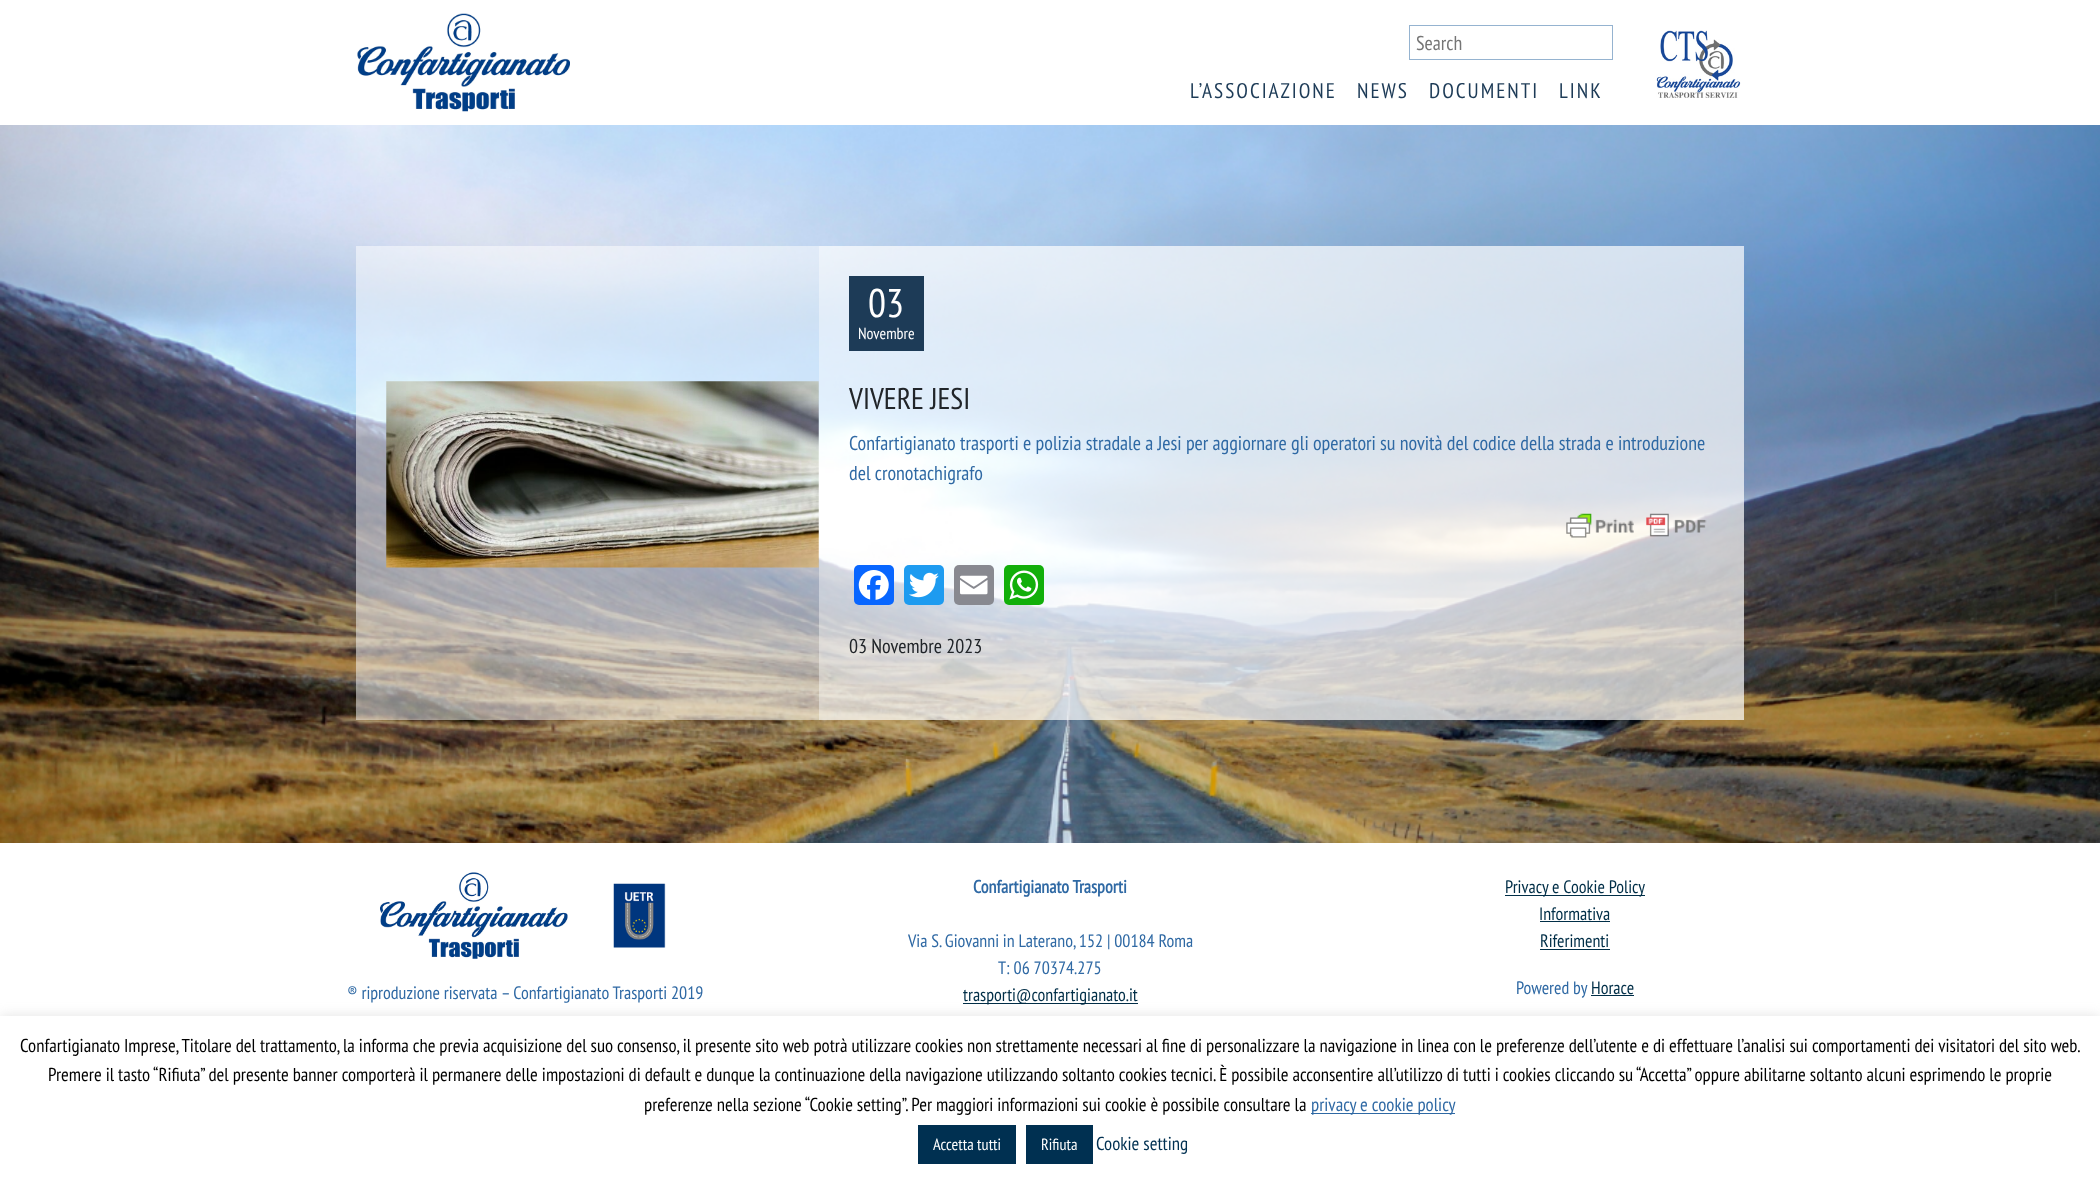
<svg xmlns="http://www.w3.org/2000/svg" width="2100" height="1178">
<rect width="100%" height="100%" fill="#fff"/>
<image x="0" y="125" width="2100" height="718" href="media/1.png"/>
<image x="357" y="13" width="213" height="99" href="media/2.png"/>
<rect x="1409.5" y="25.5" width="203" height="34" fill="none" stroke="#95b3d0"/>
<text x="1416" y="50" style="font-family:PT Sans Narrow;font-size:20px;fill:#757575">Search</text>
<image x="1656" y="30" width="85" height="68" href="media/3.png"/>
<text x="1190" y="98" style="font-family:PT Sans Narrow;font-size:21.25px;letter-spacing:2px;fill:#1d3b57">L’ASSOCIAZIONE</text>
<text x="1357" y="98" style="font-family:PT Sans Narrow;font-size:21.25px;letter-spacing:2px;fill:#1d3b57">NEWS</text>
<text x="1429" y="98" style="font-family:PT Sans Narrow;font-size:21.25px;letter-spacing:2px;fill:#1d3b57">DOCUMENTI</text>
<text x="1559" y="98" style="font-family:PT Sans Narrow;font-size:21.25px;letter-spacing:2px;fill:#1d3b57">LINK</text>
<rect x="356" y="246" width="463" height="135" fill="#ffffff80"/>
<rect x="819" y="246" width="925" height="135" fill="#ffffffb3"/>
<rect x="849" y="276" width="75" height="75" fill="#1d3b57"/>
<text x="868" y="317" style="font-family:PT Sans Narrow;font-size:40px;fill:#fff">03</text>
<text x="858" y="339" style="font-family:PT Sans Narrow;font-size:16px;fill:#fff">Novembre</text>
<rect x="356" y="381" width="463" height="339" fill="#ffffff80"/>
<image x="386" y="381" width="433" height="187" href="media/4.png"/>
<rect x="819" y="381" width="925" height="339" fill="#ffffffb3"/>
<text x="849" y="409" style="font-family:PT Sans Narrow;font-size:30px;fill:#212529">VIVERE JESI</text>
<text x="849" y="450" style="font-family:PT Sans Narrow;font-size:20px;fill:#2f69a4">Confartigianato trasporti e polizia stradale a Jesi per aggiornare gli operatori su novità del codice della strada e introduzione</text>
<text x="849" y="480" style="font-family:PT Sans Narrow;font-size:20px;fill:#2f69a4">del cronotachigrafo</text>
<image x="1566" y="513" width="141" height="25" href="media/5.png"/>
<rect x="854" y="565" width="40" height="40" rx="5" fill="#0866ff"/>
<image x="858" y="570" width="31" height="30" href="media/6.png"/>
<rect x="904" y="565" width="40" height="40" rx="5" fill="#1d9bf0"/>
<image x="909" y="572" width="30" height="26" href="media/7.png"/>
<rect x="954" y="565" width="40" height="40" rx="5" fill="#888990"/>
<image x="960" y="575" width="28" height="20" href="media/8.png"/>
<rect x="1004" y="565" width="40" height="40" rx="5" fill="#12af0a"/>
<image x="1009" y="570" width="30" height="30" href="media/9.png"/>
<text x="849" y="653" style="font-family:PT Sans Narrow;font-size:20px;fill:#212529">03 Novembre 2023</text>
<image x="380" y="872" width="188" height="87" href="media/10.png"/>
<image x="613" y="883" width="53" height="65" href="media/11.png"/>
<text x="347" y="999" style="font-family:PT Sans Narrow;font-size:18px;fill:#2f69a4">® riproduzione riservata – Confartigianato Trasporti 2019</text>
<text x="973" y="893" style="font-family:PT Sans Narrow;font-size:18px;font-weight:bold;fill:#2f69a4">Confartigianato Trasporti</text>
<text x="908" y="947" style="font-family:PT Sans Narrow;font-size:18px;fill:#2f69a4">Via S. Giovanni in Laterano, 152 | 00184 Roma</text>
<text x="998" y="974" style="font-family:PT Sans Narrow;font-size:18px;fill:#2f69a4">T: 06 70374.275</text>
<rect x="963" y="1003" width="175" height="1" fill="#002e47"/>
<text x="963" y="1001" style="font-family:PT Sans Narrow;font-size:18px;fill:#002e47">trasporti@confartigianato.it</text>
<rect x="1505" y="895" width="140" height="1" fill="#002e47"/>
<text x="1505" y="893" style="font-family:PT Sans Narrow;font-size:18px;fill:#002e47">Privacy e Cookie Policy</text>
<text x="1539" y="920" style="font-family:PT Sans Narrow;font-size:18px;fill:#002e47">Informativa</text>
<rect x="1540" y="921" width="70" height="1" fill="#002e47"/>
<text x="1540" y="947" style="font-family:PT Sans Narrow;font-size:18px;fill:#002e47">Riferimenti</text>
<rect x="1540" y="949" width="70" height="1" fill="#002e47"/>
<text x="1516" y="994" style="font-family:PT Sans Narrow;font-size:18px;fill:#2f69a4">Powered by</text>
<text x="1591" y="994" style="font-family:PT Sans Narrow;font-size:18px;fill:#002e47">Horace</text>
<rect x="1591" y="995" width="43" height="1" fill="#002e47"/>
<rect y="1015" width="2100" height="163" fill="#acabab4d" filter="blur(6px)"/>
<rect y="1016" width="2100" height="162" fill="#fff"/>
<text x="20" y="1052" style="font-family:PT Sans Narrow;font-size:18.75px;fill:#000">Confartigianato Imprese, Titolare del trattamento, la informa che previa acquisizione del suo consenso, il presente sito web potrà utilizzare cookies non strettamente necessari al fine di personalizzare la navigazione in linea con le preferenze dell’utente e di effettuare l’analisi sui comportamenti dei visitatori del sito web.</text>
<text x="48" y="1081" style="font-family:PT Sans Narrow;font-size:18.75px;fill:#000">Premere il tasto “Rifiuta” del presente banner comporterà il permanere delle impostazioni di default e dunque la continuazione della navigazione utilizzando soltanto cookies tecnici. È possibile acconsentire all’utilizzo di tutti i cookies cliccando su “Accetta” oppure abilitarne soltanto alcuni esprimendo le proprie</text>
<text x="644" y="1111" style="font-family:PT Sans Narrow;font-size:18.75px;fill:#000">preferenze nella sezione “Cookie setting”. Per maggiori informazioni sui cookie è possibile consultare la</text>
<rect x="1311" y="1113" width="144" height="1" fill="#2f69a4"/>
<text x="1311" y="1111" style="font-family:PT Sans Narrow;font-size:18.75px;fill:#2f69a4">privacy e cookie policy</text>
<rect x="918" y="1125" width="98" height="39" fill="#003051"/>
<text x="933" y="1150" style="font-family:PT Sans Narrow;font-size:16.25px;fill:#fff">Accetta tutti</text>
<rect x="1026" y="1125" width="67" height="39" fill="#003051"/>
<text x="1041" y="1150" style="font-family:PT Sans Narrow;font-size:16.25px;fill:#fff">Rifiuta</text>
<text x="1096" y="1150" style="font-family:PT Sans Narrow;font-size:18.75px;fill:#003051">Cookie setting</text>
</svg>
